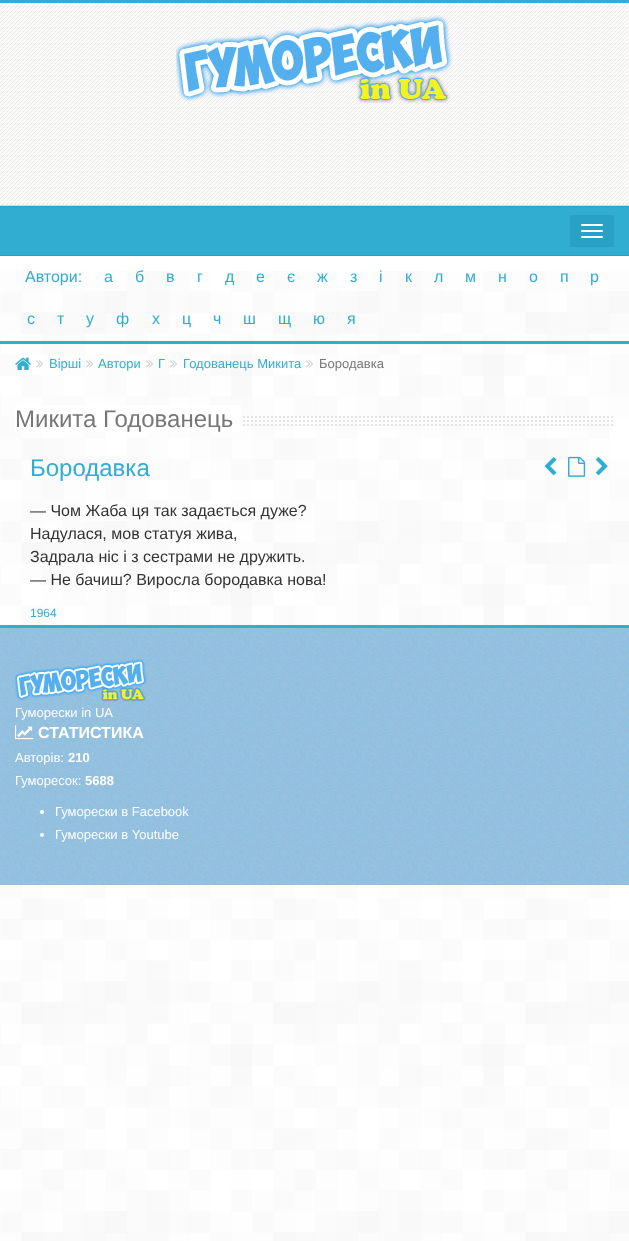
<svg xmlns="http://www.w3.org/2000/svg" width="629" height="1241">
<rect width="100%" height="100%" fill="#fff"/>
<image x="0" y="271" width="629" height="970" href="media/1.png"/>
<rect width="629" height="3" fill="#30add1"/>
<image x="0" y="3" width="629" height="202" href="media/2.png"/>
<rect y="205" width="629" height="1" fill="#ddd"/>
<image x="176" y="15" width="277" height="88" href="media/3.png"/>
<rect y="207" width="629" height="48" fill="#30add1"/>
<rect y="206" width="629" height="1" fill="#29a1c4"/>
<rect y="255" width="629" height="1" fill="#29a1c4"/>
<rect x="570" y="215" width="44" height="32" rx="2" fill="#29a1c4"/>
<rect x="581" y="224" width="22" height="2" rx="1" fill="#fff"/>
<rect x="581" y="230" width="22" height="2" rx="1" fill="#fff"/>
<rect x="581" y="236" width="22" height="2" rx="1" fill="#fff"/>
<text x="25" y="282" style="font-family:Liberation Sans;font-size:16px;fill:#30add1">Автори:</text>
<text x="104" y="282" style="font-family:Liberation Sans;font-size:16px;fill:#30add1">а</text>
<text x="135" y="282" style="font-family:Liberation Sans;font-size:16px;fill:#30add1">б</text>
<text x="166" y="282" style="font-family:Liberation Sans;font-size:16px;fill:#30add1">в</text>
<text x="197" y="282" style="font-family:Liberation Sans;font-size:16px;fill:#30add1">г</text>
<text x="225" y="282" style="font-family:Liberation Sans;font-size:16px;fill:#30add1">д</text>
<text x="256" y="282" style="font-family:Liberation Sans;font-size:16px;fill:#30add1">е</text>
<text x="287" y="282" style="font-family:Liberation Sans;font-size:16px;fill:#30add1">є</text>
<text x="317" y="282" style="font-family:Liberation Sans;font-size:16px;fill:#30add1">ж</text>
<text x="350" y="282" style="font-family:Liberation Sans;font-size:16px;fill:#30add1">з</text>
<text x="379" y="282" style="font-family:Liberation Sans;font-size:16px;fill:#30add1">і</text>
<text x="405" y="282" style="font-family:Liberation Sans;font-size:16px;fill:#30add1">к</text>
<text x="434" y="282" style="font-family:Liberation Sans;font-size:16px;fill:#30add1">л</text>
<text x="465" y="282" style="font-family:Liberation Sans;font-size:16px;fill:#30add1">м</text>
<text x="498" y="282" style="font-family:Liberation Sans;font-size:16px;fill:#30add1">н</text>
<text x="529" y="282" style="font-family:Liberation Sans;font-size:16px;fill:#30add1">о</text>
<text x="560" y="282" style="font-family:Liberation Sans;font-size:16px;fill:#30add1">п</text>
<text x="590" y="282" style="font-family:Liberation Sans;font-size:16px;fill:#30add1">р</text>
<text x="27" y="324" style="font-family:Liberation Sans;font-size:16px;fill:#30add1">с</text>
<text x="57" y="324" style="font-family:Liberation Sans;font-size:16px;fill:#30add1">т</text>
<text x="86" y="324" style="font-family:Liberation Sans;font-size:16px;fill:#30add1">у</text>
<text x="116" y="324" style="font-family:Liberation Sans;font-size:16px;fill:#30add1">ф</text>
<text x="152" y="324" style="font-family:Liberation Sans;font-size:16px;fill:#30add1">х</text>
<text x="182" y="324" style="font-family:Liberation Sans;font-size:16px;fill:#30add1">ц</text>
<text x="213" y="324" style="font-family:Liberation Sans;font-size:16px;fill:#30add1">ч</text>
<text x="243" y="324" style="font-family:Liberation Sans;font-size:16px;fill:#30add1">ш</text>
<text x="278" y="324" style="font-family:Liberation Sans;font-size:16px;fill:#30add1">щ</text>
<text x="313" y="324" style="font-family:Liberation Sans;font-size:16px;fill:#30add1">ю</text>
<text x="347" y="324" style="font-family:Liberation Sans;font-size:16px;fill:#30add1">я</text>
<rect y="341" width="629" height="3" fill="#30add1"/>
<image x="15" y="357" width="16" height="13" href="media/4.png"/>
<image x="36" y="360" width="7" height="8" href="media/5.png"/>
<text x="49" y="368" style="font-family:Liberation Sans;font-size:13px;fill:#30add1">Вірші</text>
<image x="86" y="360" width="7" height="8" href="media/6.png"/>
<text x="98" y="368" style="font-family:Liberation Sans;font-size:13px;fill:#30add1">Автори</text>
<image x="146" y="360" width="7" height="8" href="media/7.png"/>
<text x="158" y="368" style="font-family:Liberation Sans;font-size:13px;fill:#30add1">Г</text>
<image x="170" y="360" width="7" height="8" href="media/8.png"/>
<text x="183" y="368" style="font-family:Liberation Sans;font-size:13px;fill:#30add1">Годованець Микита</text>
<image x="306" y="360" width="7" height="8" href="media/8.png"/>
<text x="319" y="368" style="font-family:Liberation Sans;font-size:13px;fill:#777">Бородавка</text>
<image x="243" y="416" width="370" height="10" href="media/9.png"/>
<rect x="15" y="405" width="226" height="27" fill="#fff"/>
<text x="15" y="427" style="font-family:Liberation Sans;font-size:24px;fill:#777">Микита Годованець</text>
<text x="30" y="476" style="font-family:Liberation Sans;font-size:24px;fill:#30add1">Бородавка</text>
<text x="30" y="516" style="font-family:Liberation Sans;font-size:16px;fill:#333">— Чом Жаба ця так задається дуже?</text>
<text x="30" y="539" style="font-family:Liberation Sans;font-size:16px;fill:#333">Надулася, мов статуя жива,</text>
<text x="30" y="562" style="font-family:Liberation Sans;font-size:16px;fill:#333">Задрала ніс і з сестрами не дружить.</text>
<text x="30" y="585" style="font-family:Liberation Sans;font-size:16px;fill:#333">— Не бачиш? Виросла бородавка нова!</text>
<text x="30" y="617" style="font-family:Liberation Sans;font-size:12px;fill:#30add1">1964</text>
<image x="544" y="457" width="13" height="19" href="media/10.png"/>
<image x="568" y="456" width="18" height="21" href="media/11.png"/>
<image x="596" y="457" width="12" height="19" href="media/12.png"/>
<image x="0" y="628" width="629" height="257" href="media/13.png"/>
<rect y="625" width="629" height="3" fill="#30add1"/>
<image x="15" y="659" width="132" height="43" href="media/14.png"/>
<text x="15" y="717" style="font-family:Liberation Sans;font-size:13px;fill:#fff">Гуморески in UA</text>
<image x="15" y="725" width="19" height="15" href="media/15.png"/>
<text x="38" y="738" style="font-family:Liberation Sans;font-size:16px;font-weight:bold;fill:#fff">СТАТИСТИКА</text>
<text x="15" y="762" style="font-family:Liberation Sans;font-size:13px;fill:#fff">Авторів:</text>
<text x="68" y="762" style="font-family:Liberation Sans;font-size:13px;font-weight:bold;fill:#fff">210</text>
<text x="15" y="785" style="font-family:Liberation Sans;font-size:13px;fill:#fff">Гуморесок:</text>
<text x="85" y="785" style="font-family:Liberation Sans;font-size:13px;font-weight:bold;fill:#fff">5688</text>
<circle cx="42" cy="812" r="2" fill="#fff"/>
<text x="55" y="816" style="font-family:Liberation Sans;font-size:13px;fill:#fff">Гуморески в Facebook</text>
<circle cx="42" cy="835" r="2" fill="#fff"/>
<text x="55" y="839" style="font-family:Liberation Sans;font-size:13px;fill:#fff">Гуморески в Youtube</text>
</svg>
